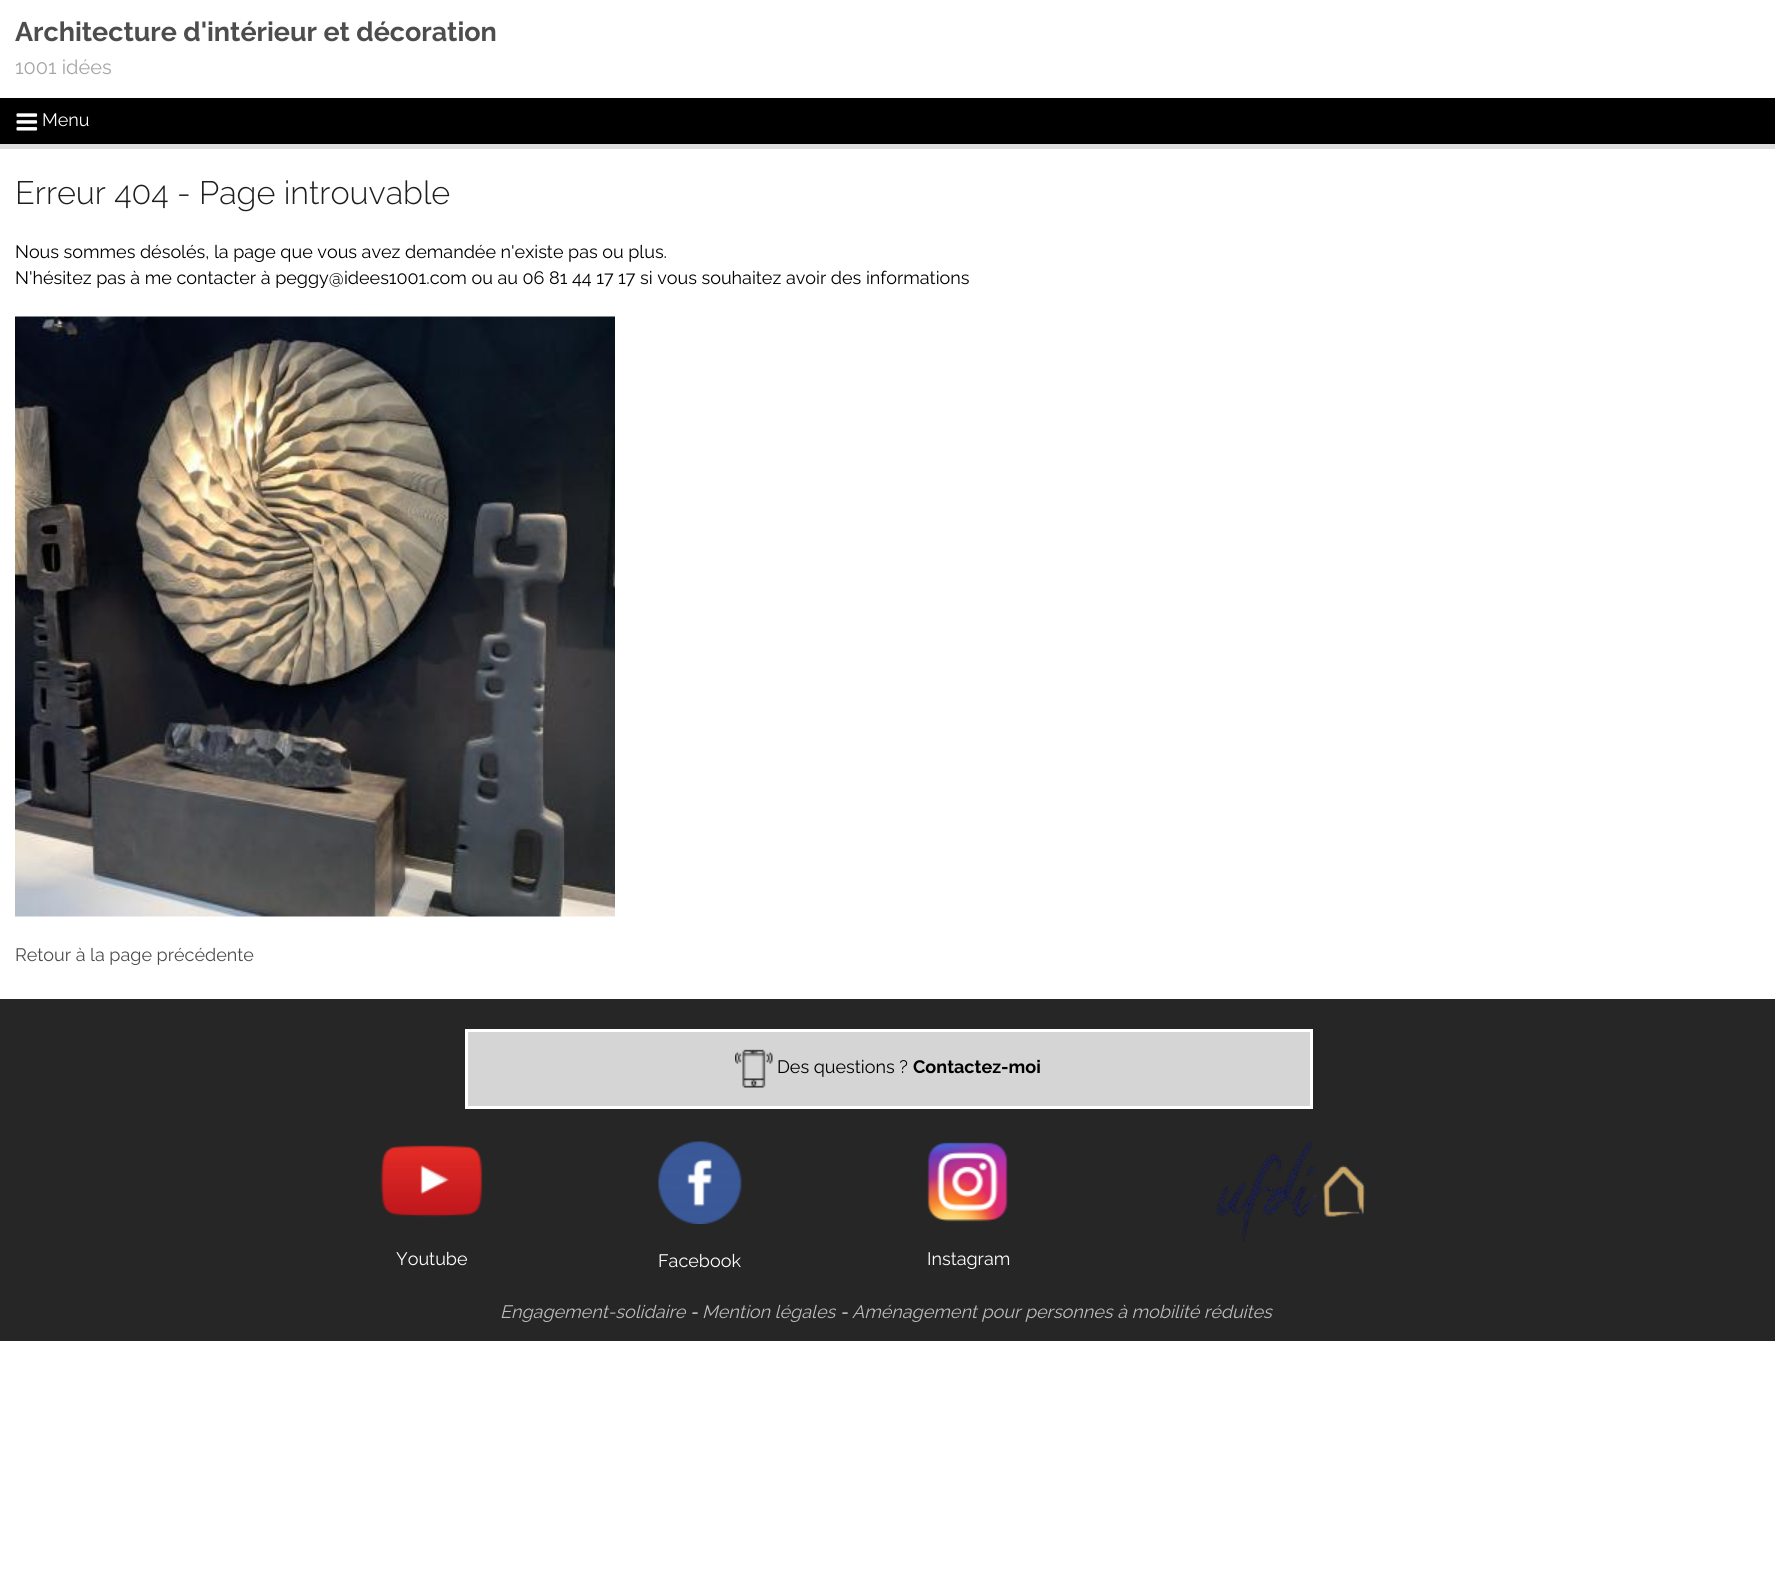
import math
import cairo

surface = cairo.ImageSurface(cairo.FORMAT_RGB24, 1775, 1586)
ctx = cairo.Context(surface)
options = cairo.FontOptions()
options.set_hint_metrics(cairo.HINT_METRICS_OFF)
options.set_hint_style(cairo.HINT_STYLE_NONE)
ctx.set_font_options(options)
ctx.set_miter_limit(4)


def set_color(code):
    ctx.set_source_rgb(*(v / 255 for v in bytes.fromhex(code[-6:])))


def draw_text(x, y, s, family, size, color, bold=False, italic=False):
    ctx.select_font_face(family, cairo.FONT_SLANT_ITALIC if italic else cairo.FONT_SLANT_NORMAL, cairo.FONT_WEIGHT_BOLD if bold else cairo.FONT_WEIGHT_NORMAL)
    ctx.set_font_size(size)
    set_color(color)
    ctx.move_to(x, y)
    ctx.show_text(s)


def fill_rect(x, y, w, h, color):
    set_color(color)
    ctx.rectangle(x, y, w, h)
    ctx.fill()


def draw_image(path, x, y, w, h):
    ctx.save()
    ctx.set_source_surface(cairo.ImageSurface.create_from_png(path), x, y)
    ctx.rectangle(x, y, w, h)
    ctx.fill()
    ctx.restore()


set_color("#ffffff")
ctx.paint()
fill_rect(0, 144, 1775, 5, "#dedede")
draw_text(15, 41, "Architecture d'intérieur et décoration", "Raleway", 26.9, "#4d4d4d", bold=True)
draw_text(15, 74, "1001 idées", "Raleway", 20, "#a5a5a5")
fill_rect(0, 98, 1775, 46, "#000000")
draw_image("assets/img1.png", 16, 113, 22, 18)
draw_text(42, 126, "Menu", "Raleway", 18, "#ffffff")
draw_text(15, 204, "Erreur 404 - Page introuvable", "Raleway Light", 32.4, "#1e1e1e")
draw_text(15, 258, "Nous sommes désolés, la page que vous avez demandée n'existe pas ou plus.", "Raleway", 18, "#000000")
draw_text(15, 284, "N'hésitez pas à me contacter à peggy@idees1001.com ou au 06 81 44 17 17 si vous souhaitez avoir des informations", "Raleway", 18, "#000000")
draw_image("assets/img2.png", 15, 316, 600, 601)
draw_text(15, 961, "Retour à la page précédente", "Raleway", 18, "#4d4d4d")
fill_rect(0, 999, 1775, 342, "#262626")
set_color("#d5d5d5")
ctx.rectangle(466.5, 1030.5, 845, 77)
ctx.fill_preserve()
set_color("#ffffff")
ctx.set_line_width(3)
ctx.stroke()
draw_image("assets/img3.png", 735, 1049, 38, 39)
draw_text(777, 1073, "Des questions ?", "Raleway", 18, "#000000")
draw_text(913, 1073, "Contactez-moi", "Raleway", 18, "#000000", bold=True)
draw_image("assets/img4.png", 1216, 1141, 149, 101)
draw_image("assets/img5.png", 380, 1145, 103, 72)
draw_text(396, 1265, "Youtube", "Raleway", 18, "#ffffff")
draw_image("assets/img6.png", 658, 1141, 84, 83)
draw_text(658, 1267, "Facebook", "Raleway", 18, "#ffffff")
draw_image("assets/img7.png", 927, 1142, 81, 80)
draw_text(927, 1265, "Instagram", "Raleway", 18, "#ffffff")
draw_text(500, 1318, "Engagement-solidaire", "Raleway", 18, "#bcbcbc", italic=True)
draw_text(690, 1318, "-", "Raleway", 18, "#ffffff", italic=True)
draw_text(702, 1318, "Mention légales", "Raleway", 18, "#bcbcbc", italic=True)
draw_text(840, 1318, "-", "Raleway", 18, "#ffffff", italic=True)
draw_text(852, 1318, "Aménagement pour personnes à mobilité réduites", "Raleway", 18, "#bcbcbc", italic=True)
surface.write_to_png("output.png")
